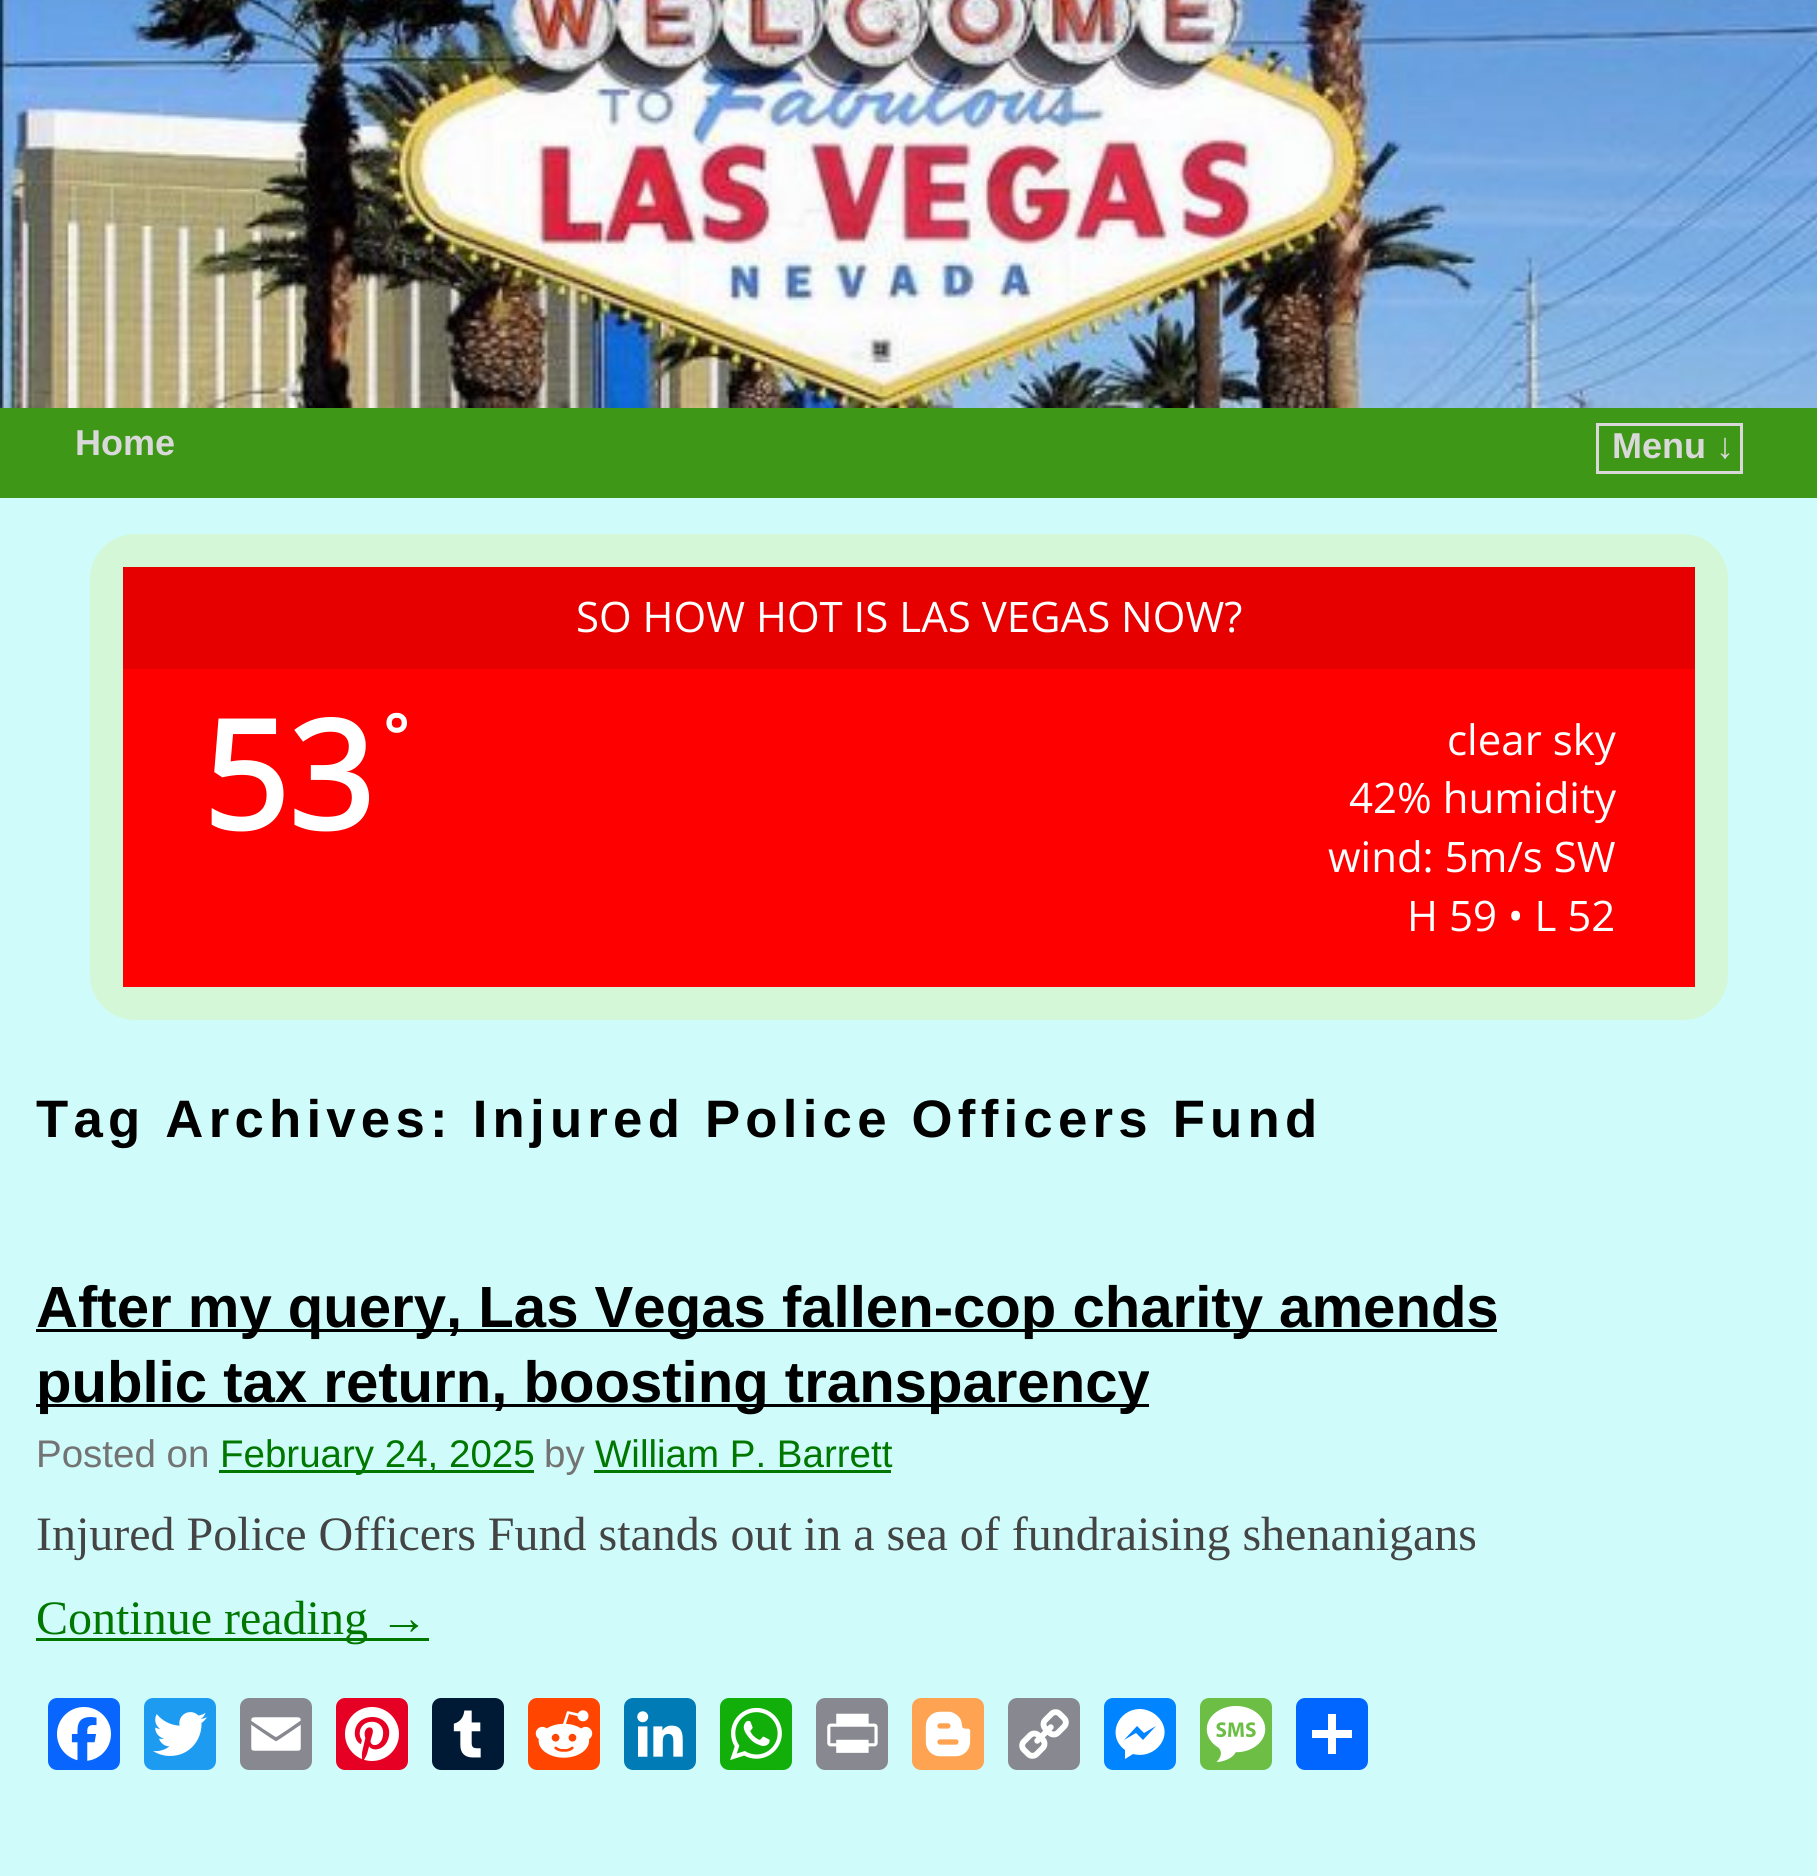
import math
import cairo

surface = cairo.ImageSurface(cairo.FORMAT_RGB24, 1817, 1876)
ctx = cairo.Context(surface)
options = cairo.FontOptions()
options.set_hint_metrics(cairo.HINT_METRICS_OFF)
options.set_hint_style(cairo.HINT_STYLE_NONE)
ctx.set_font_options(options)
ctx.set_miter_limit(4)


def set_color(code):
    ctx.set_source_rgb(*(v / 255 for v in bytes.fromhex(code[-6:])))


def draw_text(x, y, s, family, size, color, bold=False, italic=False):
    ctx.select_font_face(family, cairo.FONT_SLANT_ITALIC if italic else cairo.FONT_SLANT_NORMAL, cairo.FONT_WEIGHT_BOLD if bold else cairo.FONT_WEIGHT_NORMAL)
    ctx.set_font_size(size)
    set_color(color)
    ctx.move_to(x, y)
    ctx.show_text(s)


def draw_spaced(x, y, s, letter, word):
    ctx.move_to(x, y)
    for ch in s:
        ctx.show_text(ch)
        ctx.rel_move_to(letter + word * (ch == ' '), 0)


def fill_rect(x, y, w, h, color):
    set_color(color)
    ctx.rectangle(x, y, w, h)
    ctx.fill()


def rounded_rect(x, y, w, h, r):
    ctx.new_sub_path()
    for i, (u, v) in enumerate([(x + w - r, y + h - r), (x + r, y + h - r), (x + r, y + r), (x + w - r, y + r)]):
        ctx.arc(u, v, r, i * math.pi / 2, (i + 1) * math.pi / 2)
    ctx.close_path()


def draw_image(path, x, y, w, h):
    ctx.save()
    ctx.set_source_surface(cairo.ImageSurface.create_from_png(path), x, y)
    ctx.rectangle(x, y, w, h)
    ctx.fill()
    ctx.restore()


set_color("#3f9718")
ctx.paint()
draw_image("assets/img1.png", 0, 0, 1817, 408)
draw_text(75, 455, "Home", "Liberation Sans", 36, "#d9d9d9", bold=True)
ctx.rectangle(1597.5, 424.5, 144, 48)
ctx.set_line_width(3)
ctx.stroke()
draw_text(1612, 458, "Menu ↓", "Liberation Sans", 36, "#d9d9d9", bold=True)
fill_rect(0, 498, 1817, 1378, "#cffcfa")
set_color("#d4f7d8")
rounded_rect(90, 534, 1638, 486, 45)
ctx.fill()
fill_rect(123, 669, 1572, 318, "#ff0000")
fill_rect(123, 567, 1572, 102, "#e60000")
draw_text(576, 632, "SO HOW HOT IS LAS VEGAS NOW?", "Open Sans", 42, "#ffffff")
draw_text(202, 830, "53", "Open Sans", 150, "#ffffff", bold=True)
draw_text(383, 758, "°", "Open Sans", 60, "#ffffff", bold=True)
draw_text(1447, 755, "clear sky", "Open Sans", 42, "#ffffff")
draw_text(1349, 813, "42% humidity", "Open Sans", 42, "#ffffff")
draw_text(1328, 872, "wind: 5m/s SW", "Open Sans", 42, "#ffffff")
draw_text(1407, 931, "H 59 • L 52", "Open Sans", 42, "#ffffff")
ctx.select_font_face("Liberation Sans", cairo.FONT_SLANT_NORMAL, cairo.FONT_WEIGHT_BOLD)
ctx.set_font_size(52.7)
set_color("#000000")
draw_spaced(36, 1137, "Tag Archives: Injured Police Officers Fund", 5.25, 0)
fill_rect(36, 1329, 1461, 3, "#000000")
draw_text(36, 1327, "After my query, Las Vegas fallen-cop charity amends", "Liberation Sans", 58.1, "#000000", bold=True)
fill_rect(36, 1404, 1113, 3, "#000000")
draw_text(36, 1402, "public tax return, boosting transparency", "Liberation Sans", 58.1, "#000000", bold=True)
draw_text(36, 1467, "Posted on", "Liberation Sans", 38.5, "#737373")
fill_rect(219, 1470, 315, 3, "#007700")
draw_text(220, 1467, "February 24, 2025", "Liberation Sans", 38.5, "#007700")
draw_text(544, 1467, "by", "Liberation Sans", 38.5, "#737373")
draw_text(595, 1467, "William P. Barrett", "Liberation Sans", 38.5, "#007700")
fill_rect(594, 1470, 297, 3, "#007700")
draw_text(36, 1550, "Injured Police Officers Fund stands out in a sea of fundraising shenanigans", "Liberation Serif", 48, "#444444")
fill_rect(36, 1638, 393, 3, "#007700")
draw_text(36, 1634, "Continue reading →", "Liberation Serif", 48, "#007700")
set_color("#0866ff")
rounded_rect(48, 1698, 72, 72, 9)
ctx.fill()
draw_image("assets/img2.png", 57, 1707, 54, 54)
set_color("#1d9bf0")
rounded_rect(144, 1698, 72, 72, 9)
ctx.fill()
draw_image("assets/img3.png", 153, 1712, 54, 44)
set_color("#888990")
rounded_rect(240, 1698, 72, 72, 9)
ctx.fill()
draw_image("assets/img4.png", 251, 1717, 50, 34)
set_color("#e60023")
rounded_rect(336, 1698, 72, 72, 9)
ctx.fill()
draw_image("assets/img5.png", 345, 1707, 54, 54)
set_color("#001935")
rounded_rect(432, 1698, 72, 72, 9)
ctx.fill()
draw_image("assets/img6.png", 453, 1710, 28, 48)
set_color("#ff4500")
rounded_rect(528, 1698, 72, 72, 9)
ctx.fill()
draw_image("assets/img7.png", 535, 1710, 58, 48)
set_color("#007bb5")
rounded_rect(624, 1698, 72, 72, 9)
ctx.fill()
draw_image("assets/img8.png", 637, 1711, 46, 46)
set_color("#12af0a")
rounded_rect(720, 1698, 72, 72, 9)
ctx.fill()
draw_image("assets/img9.png", 730, 1707, 52, 53)
set_color("#888990")
rounded_rect(816, 1698, 72, 72, 9)
ctx.fill()
draw_image("assets/img10.png", 827, 1713, 51, 40)
set_color("#fda352")
rounded_rect(912, 1698, 72, 72, 9)
ctx.fill()
draw_image("assets/img11.png", 925, 1711, 46, 46)
set_color("#888990")
rounded_rect(1008, 1698, 72, 72, 9)
ctx.fill()
draw_image("assets/img12.png", 1019, 1709, 50, 50)
set_color("#0084ff")
rounded_rect(1104, 1698, 72, 72, 9)
ctx.fill()
set_color("#ffffff")
ctx.new_path()
ctx.move_to(1140, 1709)
ctx.curve_to(1118, 1709, 1106, 1736, 1125, 1750)
ctx.line_to(1125, 1759)
ctx.line_to(1133, 1754)
ctx.curve_to(1156, 1760, 1176, 1734, 1157, 1716)
ctx.curve_to(1153, 1712, 1146, 1709, 1140, 1709)
ctx.move_to(1143, 1740)
ctx.line_to(1136, 1733)
ctx.line_to(1124, 1740)
ctx.line_to(1137, 1726)
ctx.line_to(1144, 1733)
ctx.line_to(1156, 1726)
ctx.close_path()
ctx.fill()
set_color("#6cbe45")
rounded_rect(1200, 1698, 72, 72, 9)
ctx.fill()
draw_image("assets/img13.png", 1206, 1706, 60, 56)
set_color("#0166ff")
rounded_rect(1296, 1698, 72, 72, 9)
ctx.fill()
fill_rect(1328, 1714, 8, 40, "#ffffff")
fill_rect(1312, 1730, 40, 8, "#ffffff")
surface.write_to_png("output.png")
